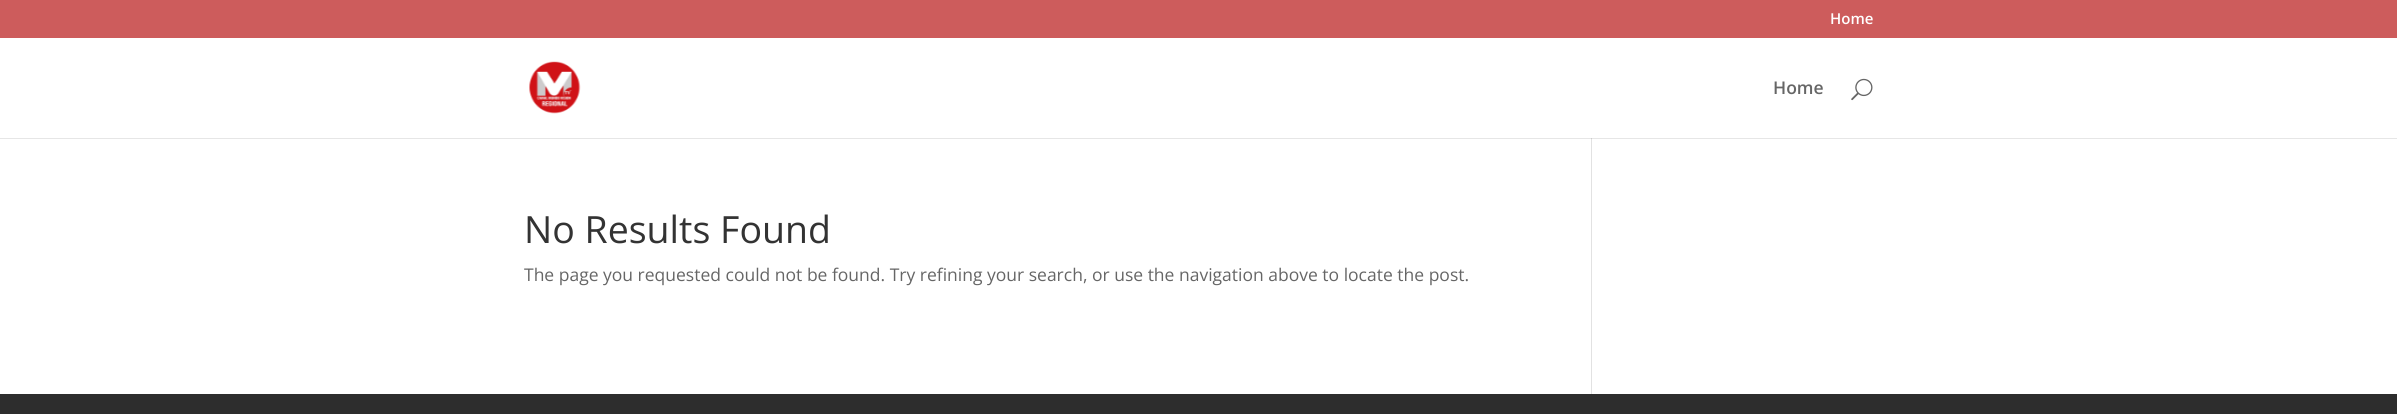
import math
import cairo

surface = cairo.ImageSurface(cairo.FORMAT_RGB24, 2397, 414)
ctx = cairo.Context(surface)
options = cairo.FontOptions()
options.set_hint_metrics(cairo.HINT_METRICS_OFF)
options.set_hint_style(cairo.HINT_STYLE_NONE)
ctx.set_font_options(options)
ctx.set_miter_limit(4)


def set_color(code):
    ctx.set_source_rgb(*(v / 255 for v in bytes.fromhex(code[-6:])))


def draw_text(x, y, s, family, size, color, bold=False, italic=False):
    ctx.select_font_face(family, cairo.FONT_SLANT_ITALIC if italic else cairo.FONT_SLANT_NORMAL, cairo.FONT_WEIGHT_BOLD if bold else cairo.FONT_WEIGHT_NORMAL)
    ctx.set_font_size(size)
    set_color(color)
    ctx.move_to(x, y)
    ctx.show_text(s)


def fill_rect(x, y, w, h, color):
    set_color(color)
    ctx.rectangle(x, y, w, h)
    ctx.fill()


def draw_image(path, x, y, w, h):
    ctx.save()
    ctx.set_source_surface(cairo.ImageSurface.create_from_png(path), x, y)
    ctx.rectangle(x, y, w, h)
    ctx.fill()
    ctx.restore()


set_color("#ffffff")
ctx.paint()
fill_rect(0, 0, 2397, 38, "#cd5c5c")
draw_text(1830, 24, "Home", "Open Sans SemiBold", 15, "#ffffff")
fill_rect(1591, 138, 1, 256, "#e2e2e2")
ctx.set_source_rgba(0, 0, 0, 0.1)
ctx.new_path()
ctx.move_to(0, 138)
ctx.line_to(0, 139)
ctx.line_to(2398, 139)
ctx.line_to(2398, 39)
ctx.line_to(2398, 138)
ctx.close_path()
ctx.fill()
draw_image("assets/img1.png", 529, 61, 52, 53)
draw_text(1773, 94, "Home", "Open Sans SemiBold", 17.5, "#666666")
draw_image("assets/img2.png", 1851, 78, 22, 23)
draw_text(524, 243, "No Results Found", "Open Sans", 37.5, "#333333")
draw_text(524, 281, "The page you requested could not be found. Try refining your search, or use the navigation above to locate the post.", "Open Sans", 17.5, "#666666")
fill_rect(0, 394, 2397, 20, "#2d2d2d")
surface.write_to_png("output.png")
